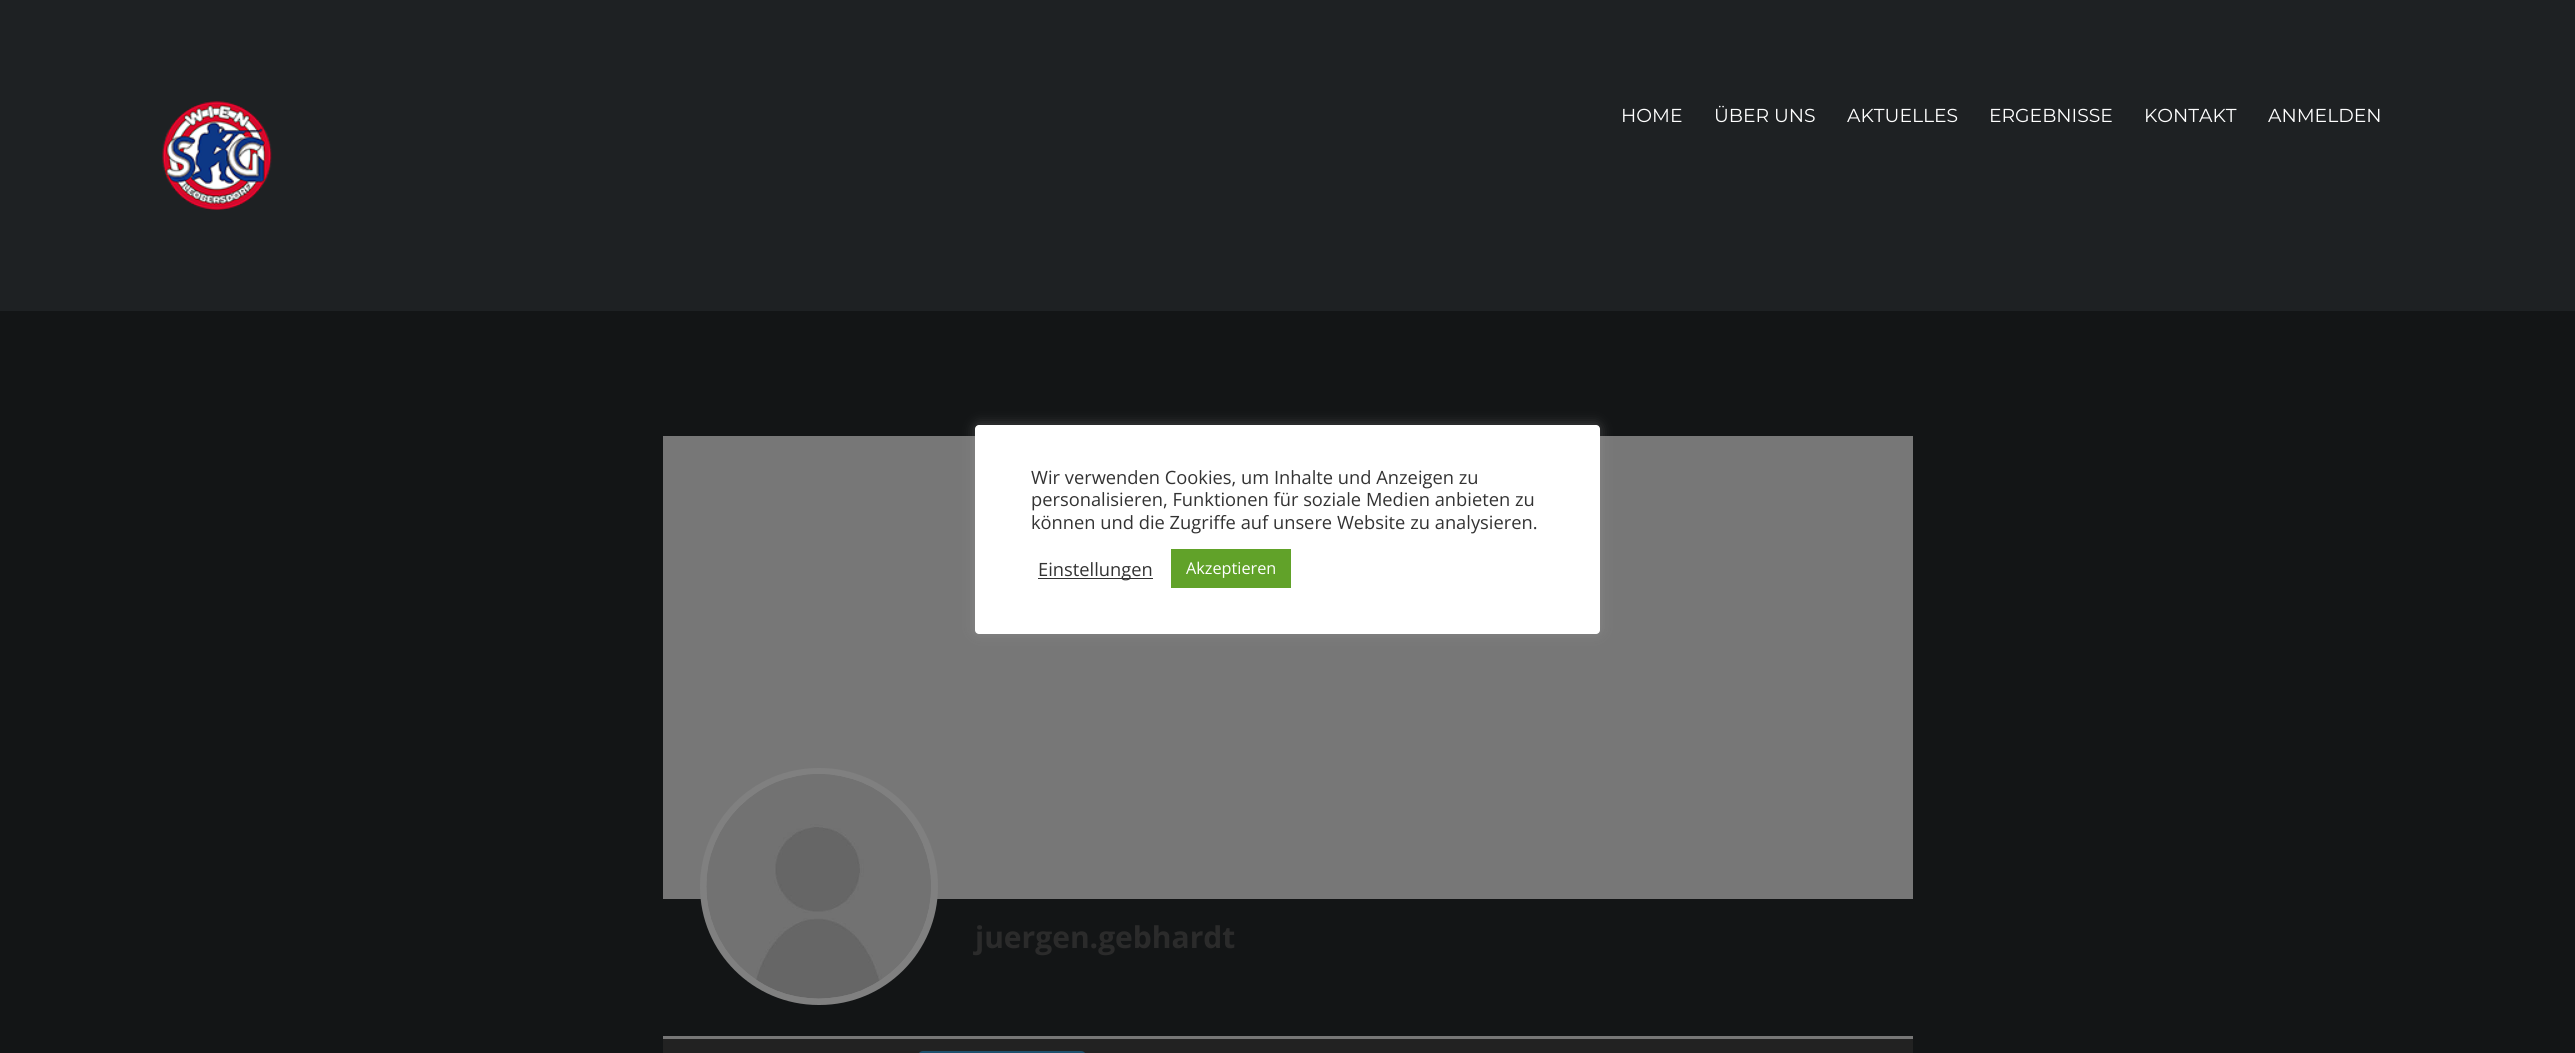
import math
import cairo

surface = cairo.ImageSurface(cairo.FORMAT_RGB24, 2575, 1053)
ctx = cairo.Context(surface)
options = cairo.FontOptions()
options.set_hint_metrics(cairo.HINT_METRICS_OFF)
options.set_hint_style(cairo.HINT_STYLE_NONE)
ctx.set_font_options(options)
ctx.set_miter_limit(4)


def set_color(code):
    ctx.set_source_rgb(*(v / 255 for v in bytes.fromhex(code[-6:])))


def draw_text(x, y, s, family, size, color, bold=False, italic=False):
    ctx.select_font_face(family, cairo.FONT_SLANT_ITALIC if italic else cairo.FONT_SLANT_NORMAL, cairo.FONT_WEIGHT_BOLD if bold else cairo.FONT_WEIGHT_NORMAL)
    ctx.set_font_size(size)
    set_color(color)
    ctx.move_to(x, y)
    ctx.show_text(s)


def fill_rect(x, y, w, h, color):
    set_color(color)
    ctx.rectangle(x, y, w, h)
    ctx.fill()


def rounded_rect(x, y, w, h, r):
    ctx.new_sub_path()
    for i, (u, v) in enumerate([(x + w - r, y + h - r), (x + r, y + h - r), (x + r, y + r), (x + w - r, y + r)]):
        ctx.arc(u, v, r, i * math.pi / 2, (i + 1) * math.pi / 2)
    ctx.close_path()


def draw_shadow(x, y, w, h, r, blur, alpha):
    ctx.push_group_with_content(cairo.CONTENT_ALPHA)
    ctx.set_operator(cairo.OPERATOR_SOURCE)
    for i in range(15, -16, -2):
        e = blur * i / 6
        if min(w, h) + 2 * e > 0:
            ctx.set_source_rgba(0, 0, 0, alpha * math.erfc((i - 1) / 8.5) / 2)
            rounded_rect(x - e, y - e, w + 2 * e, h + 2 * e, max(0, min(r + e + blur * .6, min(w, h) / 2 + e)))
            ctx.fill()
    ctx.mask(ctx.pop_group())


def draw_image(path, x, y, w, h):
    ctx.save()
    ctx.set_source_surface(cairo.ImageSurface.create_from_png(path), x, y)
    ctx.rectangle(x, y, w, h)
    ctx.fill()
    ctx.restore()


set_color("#131516")
ctx.paint()
fill_rect(0, 0, 2575, 311, "#1e2123")
draw_image("assets/img1.png", 162, 101, 110, 109)
draw_text(1621, 122, "HOME", "Montserrat", 18.75, "#ffffff")
draw_text(1714, 122, "ÜBER UNS", "Montserrat", 18.75, "#ffffff")
draw_text(1847, 122, "AKTUELLES", "Montserrat", 18.75, "#ffffff")
draw_text(1989, 122, "ERGEBNISSE", "Montserrat", 18.75, "#ffffff")
draw_text(2144, 122, "KONTAKT", "Montserrat", 18.75, "#ffffff")
draw_text(2268, 122, "ANMELDEN", "Montserrat", 18.75, "#ffffff")
fill_rect(663, 436, 1250, 463, "#777777")
fill_rect(663, 1036, 1250, 3, "#777777")
set_color("#808080")
rounded_rect(703, 771, 232, 231, 115.5)
ctx.fill_preserve()
ctx.set_line_width(6)
ctx.stroke()
draw_image("assets/img2.png", 706, 774, 225, 225)
draw_text(975, 948, "juergen.gebhardt", "Open Sans", 30, "#2b2b2b", bold=True)
fill_rect(663, 1039, 1250, 14, "#222222")
set_color("#1e516d")
rounded_rect(918, 1051, 168, 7, 5)
ctx.fill()
set_color("#acabab")
draw_shadow(975, 424, 625, 209, 4, 6, 0.3)
set_color("#ffffff")
rounded_rect(975, 425, 625, 209, 4)
ctx.fill()
draw_text(1031, 484, "Wir verwenden Cookies, um Inhalte und Anzeigen zu", "Open Sans", 18.3, "#333333")
draw_text(1031, 506, "personalisieren, Funktionen für soziale Medien anbieten zu", "Open Sans", 18.3, "#333333")
draw_text(1031, 529, "können und die Zugriffe auf unsere Website zu analysieren.", "Open Sans", 18.3, "#333333")
fill_rect(1038, 578, 115, 1, "#333333")
draw_text(1038, 576, "Einstellungen", "Open Sans", 18.3, "#333333")
fill_rect(1171, 549, 120, 39, "#61a229")
draw_text(1186, 574, "Akzeptieren", "Open Sans", 16.25, "#ffffff")
surface.write_to_png("output.png")
